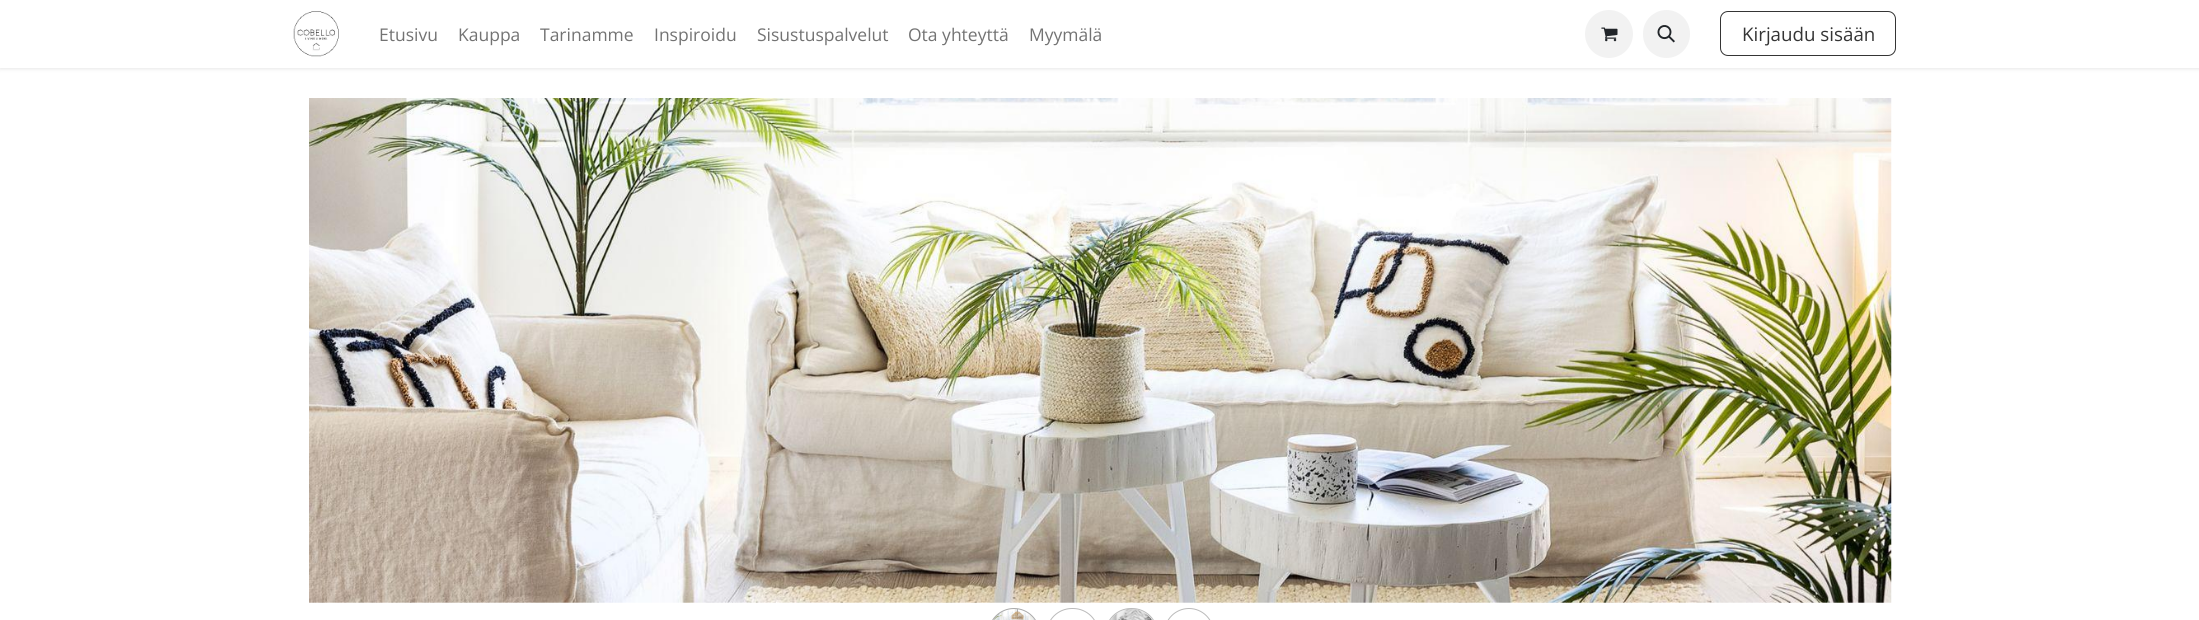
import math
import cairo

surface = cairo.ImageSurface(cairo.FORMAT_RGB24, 2199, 620)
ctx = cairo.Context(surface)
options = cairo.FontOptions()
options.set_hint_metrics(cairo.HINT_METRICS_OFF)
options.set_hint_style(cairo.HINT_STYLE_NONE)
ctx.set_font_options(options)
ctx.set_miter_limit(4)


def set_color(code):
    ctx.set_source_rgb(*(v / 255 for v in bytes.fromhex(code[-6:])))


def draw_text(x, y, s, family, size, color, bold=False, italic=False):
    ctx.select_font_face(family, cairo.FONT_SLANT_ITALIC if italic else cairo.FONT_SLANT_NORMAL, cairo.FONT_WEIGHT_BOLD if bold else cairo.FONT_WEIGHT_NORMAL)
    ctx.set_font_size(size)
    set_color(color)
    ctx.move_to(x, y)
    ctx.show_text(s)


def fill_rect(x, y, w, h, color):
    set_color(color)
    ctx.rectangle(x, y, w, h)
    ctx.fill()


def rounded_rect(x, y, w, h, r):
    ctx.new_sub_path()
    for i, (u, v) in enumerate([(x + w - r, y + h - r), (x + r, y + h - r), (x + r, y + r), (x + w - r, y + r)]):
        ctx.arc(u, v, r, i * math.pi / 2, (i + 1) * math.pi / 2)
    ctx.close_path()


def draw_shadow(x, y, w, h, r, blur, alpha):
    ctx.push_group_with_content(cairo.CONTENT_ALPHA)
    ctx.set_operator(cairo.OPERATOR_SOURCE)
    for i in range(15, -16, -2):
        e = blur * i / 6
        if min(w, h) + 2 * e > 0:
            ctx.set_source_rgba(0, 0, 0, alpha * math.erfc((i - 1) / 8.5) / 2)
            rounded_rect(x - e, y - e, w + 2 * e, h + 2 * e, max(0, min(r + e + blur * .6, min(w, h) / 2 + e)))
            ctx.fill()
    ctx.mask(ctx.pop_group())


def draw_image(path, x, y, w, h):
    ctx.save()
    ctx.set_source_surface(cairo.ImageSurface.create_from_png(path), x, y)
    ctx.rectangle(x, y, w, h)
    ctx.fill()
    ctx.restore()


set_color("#ffffff")
ctx.paint()
set_color("#000000")
draw_shadow(0, 1, 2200, 68, 0, 2, 0.1)
fill_rect(0, 0, 2199, 68, "#ffffff")
draw_image("assets/img1.png", 293, 11, 46, 46)
draw_text(379, 41, "Etusivu", "Open Sans", 17.5, "#737373")
draw_text(458, 41, "Kauppa", "Open Sans", 17.5, "#737373")
draw_text(540, 41, "Tarinamme", "Open Sans", 17.5, "#737373")
draw_text(654, 41, "Inspiroidu", "Open Sans", 17.5, "#737373")
draw_text(757, 41, "Sisustuspalvelut", "Open Sans", 17.5, "#737373")
draw_text(908, 41, "Ota yhteyttä", "Open Sans", 17.5, "#737373")
draw_text(1029, 41, "Myymälä", "Open Sans", 17.5, "#737373")
set_color("#f2f2f2")
ctx.new_path()
ctx.arc(1609, 34, 24, 0, 2 * math.pi)
ctx.fill()
draw_image("assets/img2.png", 1601, 27, 17, 15)
rounded_rect(1643, 10, 47, 48, 23.5)
ctx.fill()
draw_image("assets/img3.png", 1657, 25, 18, 18)
rounded_rect(1720.5, 11.5, 175, 44, 7.5)
set_color("#353535")
ctx.set_line_width(1)
ctx.stroke()
draw_text(1742, 41, "Kirjaudu sisään", "Open Sans", 18.75, "#353535")
draw_image("assets/img4.png", 309, 98, 1583, 505)
ctx.set_source_rgba(1, 1, 1, 0.5)
ctx.new_path()
ctx.move_to(417.5, 350)
ctx.line_to(435, 332.5)
ctx.line_to(437.5, 335)
ctx.line_to(422.5, 350)
ctx.line_to(437.5, 365)
ctx.line_to(435, 367.5)
ctx.close_path()
ctx.fill()
ctx.new_path()
ctx.move_to(1782.5, 350)
ctx.line_to(1765, 367.5)
ctx.line_to(1762.5, 365)
ctx.line_to(1777.5, 350)
ctx.line_to(1762.5, 335)
ctx.line_to(1765, 332.5)
ctx.close_path()
ctx.fill()
draw_image("assets/img5.png", 993, 609, 42, 11)
rounded_rect(988.5, 608.5, 51, 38, 25.5)
set_color("#aaaaaa")
ctx.stroke()
rounded_rect(1046.5, 608.5, 52, 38, 25.5)
set_color("#bbbbbb")
ctx.stroke()
draw_image("assets/img6.png", 1110, 609, 42, 11)
rounded_rect(1105.5, 608.5, 52, 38, 25.5)
ctx.stroke()
rounded_rect(1164.5, 608.5, 49, 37, 24.5)
ctx.stroke()
surface.write_to_png("output.png")
